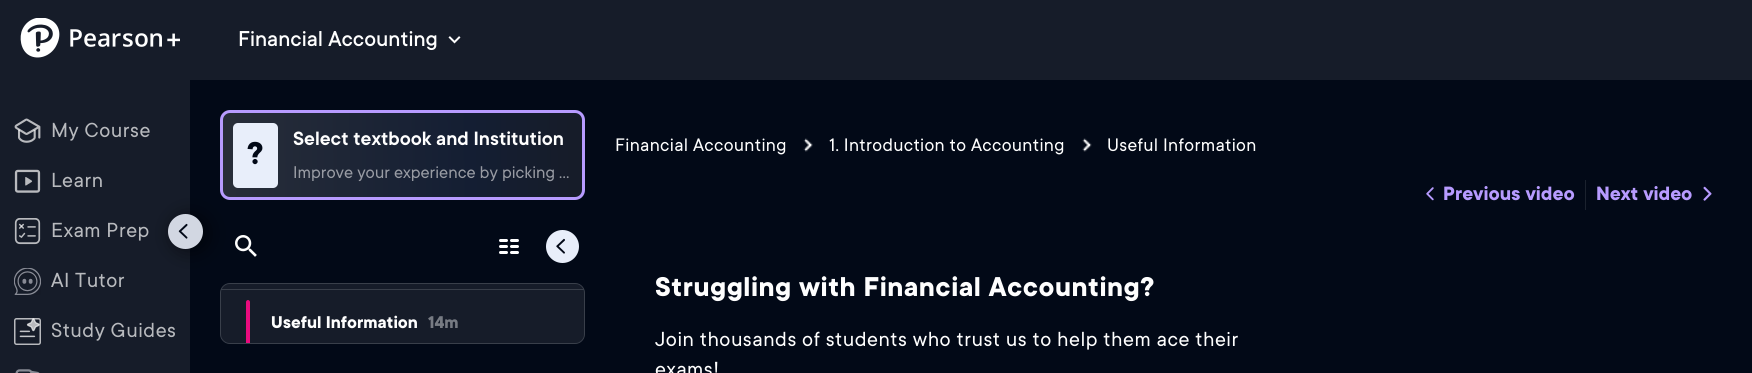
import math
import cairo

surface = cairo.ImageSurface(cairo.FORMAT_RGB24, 1752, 373)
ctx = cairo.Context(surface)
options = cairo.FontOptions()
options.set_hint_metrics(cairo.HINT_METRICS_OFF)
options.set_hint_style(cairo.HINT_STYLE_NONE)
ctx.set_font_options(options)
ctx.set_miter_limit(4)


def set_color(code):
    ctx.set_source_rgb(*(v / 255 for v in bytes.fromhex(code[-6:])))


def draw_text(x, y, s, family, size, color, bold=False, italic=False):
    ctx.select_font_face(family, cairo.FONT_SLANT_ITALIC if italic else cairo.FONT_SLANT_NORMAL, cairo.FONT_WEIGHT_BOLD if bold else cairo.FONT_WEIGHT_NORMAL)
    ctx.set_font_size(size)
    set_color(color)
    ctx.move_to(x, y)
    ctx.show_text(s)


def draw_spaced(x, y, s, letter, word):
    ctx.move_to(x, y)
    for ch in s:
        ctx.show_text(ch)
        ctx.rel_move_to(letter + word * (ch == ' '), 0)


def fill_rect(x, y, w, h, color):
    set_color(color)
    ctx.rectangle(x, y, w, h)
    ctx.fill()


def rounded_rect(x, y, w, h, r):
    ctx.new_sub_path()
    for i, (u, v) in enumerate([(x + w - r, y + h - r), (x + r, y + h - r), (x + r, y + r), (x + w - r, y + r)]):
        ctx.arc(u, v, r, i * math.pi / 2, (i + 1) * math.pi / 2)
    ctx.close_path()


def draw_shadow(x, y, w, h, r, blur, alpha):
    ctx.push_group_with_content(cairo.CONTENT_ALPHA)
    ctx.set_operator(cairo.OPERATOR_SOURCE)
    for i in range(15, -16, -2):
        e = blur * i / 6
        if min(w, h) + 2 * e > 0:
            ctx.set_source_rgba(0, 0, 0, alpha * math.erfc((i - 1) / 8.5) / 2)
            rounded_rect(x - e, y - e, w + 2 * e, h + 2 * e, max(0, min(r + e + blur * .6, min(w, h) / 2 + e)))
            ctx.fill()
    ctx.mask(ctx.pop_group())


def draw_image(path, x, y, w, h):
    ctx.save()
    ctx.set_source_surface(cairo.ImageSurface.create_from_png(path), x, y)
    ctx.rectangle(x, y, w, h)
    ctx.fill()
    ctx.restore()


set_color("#020917")
ctx.paint()
fill_rect(0, 0, 1752, 80, "#161c29")
draw_image("assets/img1.png", 20, 18, 40, 40)
draw_image("assets/img2.png", 70, 29, 110, 18)
draw_text(238, 46, "Financial Accounting", "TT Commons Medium", 23.75, "#fefefe")
draw_image("assets/img3.png", 448, 36, 13, 8)
fill_rect(0, 80, 190, 293, "#161c29")
draw_image("assets/img4.png", 14, 118, 27, 25)
ctx.select_font_face("TT Commons")
ctx.set_font_size(22.5)
set_color("#b8babe")
draw_spaced(51, 137, "My Course", 0.5, 0)
draw_image("assets/img5.png", 14, 169, 27, 24)
draw_spaced(51, 187, "Learn", 0.5, 0)
draw_image("assets/img6.png", 14, 218, 27, 27)
draw_spaced(51, 237, "Exam Prep", 0.5, 0)
draw_image("assets/img7.png", 14, 268, 27, 27)
draw_spaced(51, 287, "AI Tutor", 0.5, 0)
draw_image("assets/img8.png", 14, 318, 27, 27)
draw_spaced(51, 337, "Study Guides", 0.5, 0)
draw_image("assets/img9.png", 15, 369, 25, 4)
ctx.save()
rounded_rect(220, 110, 365, 90, 10)
ctx.clip()
gradient = cairo.LinearGradient(222, 158, 583, 152)
gradient.add_color_stop_rgba(0.02, 0.153, 0.176, 0.224, 1)
gradient.add_color_stop_rgba(0.69, 0.078, 0.118, 0.2, 1)
gradient.add_color_stop_rgba(0.97, 0.086, 0.11, 0.161, 1)
ctx.set_source(gradient)
ctx.rectangle(223, 113, 360, 85)
ctx.fill()
ctx.restore()
rounded_rect(221.5, 111.5, 362, 87, 8.5)
set_color("#b79bff")
ctx.set_line_width(3)
ctx.stroke()
set_color("#e8eefa")
rounded_rect(233, 123, 45, 65, 5)
ctx.fill()
draw_image("assets/img11.png", 235, 235, 22, 22)
set_color("#000000")
draw_shadow(173, 216, 35, 35, 17.5, 10, 0.56)
set_color("#d2d7e2")
ctx.arc(185.5, 231.5, 17.5, 0, 2 * math.pi)
ctx.fill()
draw_image("assets/img10.png", 178, 223, 10, 16)
draw_text(247, 164, "?", "TT Commons", 35, "#020917", bold=True)
draw_text(293, 145, "Select textbook and Institution", "TT Commons SemiBold", 21.25, "#fefefe")
draw_text(293, 178, "Improve your experience by picking …", "TT Commons", 18.75, "#989ba3")
draw_image("assets/img12.png", 499, 239, 20, 15)
set_color("#e8eefa")
ctx.arc(562.5, 246.5, 16.5, 0, 2 * math.pi)
ctx.fill()
draw_image("assets/img13.png", 556, 238, 9, 16)
set_color("#272d39")
rounded_rect(220.5, 283.5, 364, 60, 9.5)
ctx.fill_preserve()
set_color("#393f4a")
ctx.set_line_width(1)
ctx.stroke()
ctx.save()
rounded_rect(221, 284, 363, 59, 9)
ctx.clip()
fill_rect(221, 284, 363, 5, "#161c29")
ctx.restore()
fill_rect(221, 289, 363, 1, "#393f4a")
ctx.save()
rounded_rect(221, 284, 363, 59, 9)
ctx.clip()
set_color("#161c29")
ctx.new_path()
ctx.move_to(221, 290)
ctx.line_to(584, 290)
ctx.line_to(584, 334)
ctx.curve_to(584, 339, 580, 343, 575, 343)
ctx.line_to(230, 343)
ctx.curve_to(225, 343, 221, 339, 221, 334)
ctx.close_path()
ctx.fill()
ctx.restore()
set_color("#ea0b7e")
ctx.new_path()
ctx.move_to(248, 300)
ctx.curve_to(249, 300, 250, 301, 250, 302)
ctx.line_to(250, 343)
ctx.line_to(246, 343)
ctx.line_to(246, 302)
ctx.curve_to(246, 301, 247, 300, 248, 300)
ctx.close_path()
ctx.fill()
draw_text(271, 328, "Useful Information", "TT Commons", 18.75, "#fefefe", bold=True)
draw_text(428, 328, "14m", "TT Commons", 18.75, "#777b83", bold=True)
ctx.select_font_face("TT Commons")
ctx.set_font_size(20)
set_color("#fefefe")
draw_spaced(615, 151, "Financial Accounting", 0.3, 0)
draw_image("assets/img14.png", 803, 138, 10, 14)
draw_spaced(829, 151, "1. Introduction to Accounting", 0.3, 0)
draw_image("assets/img15.png", 1082, 138, 10, 14)
draw_spaced(1107, 151, "Useful Information", 0.3, 0)
draw_image("assets/img16.png", 1426, 187, 8, 14)
draw_text(1443, 200, "Previous video", "TT Commons", 21.25, "#b79bff", bold=True)
fill_rect(1585, 180, 1, 30, "#1b222e")
draw_text(1596, 200, "Next video", "TT Commons", 21.25, "#b79bff", bold=True)
draw_image("assets/img17.png", 1703, 186, 9, 15)
ctx.set_font_size(30)
set_color("#fefefe")
draw_spaced(655, 296, "Struggling with Financial Accounting?", 0.5, 0)
ctx.select_font_face("TT Commons")
ctx.set_font_size(22.5)
draw_spaced(655, 346, "Join thousands of students who trust us to help them ace their", 0.5, 0)
draw_spaced(655, 376, "exams!", 0.5, 0)
surface.write_to_png("output.png")
